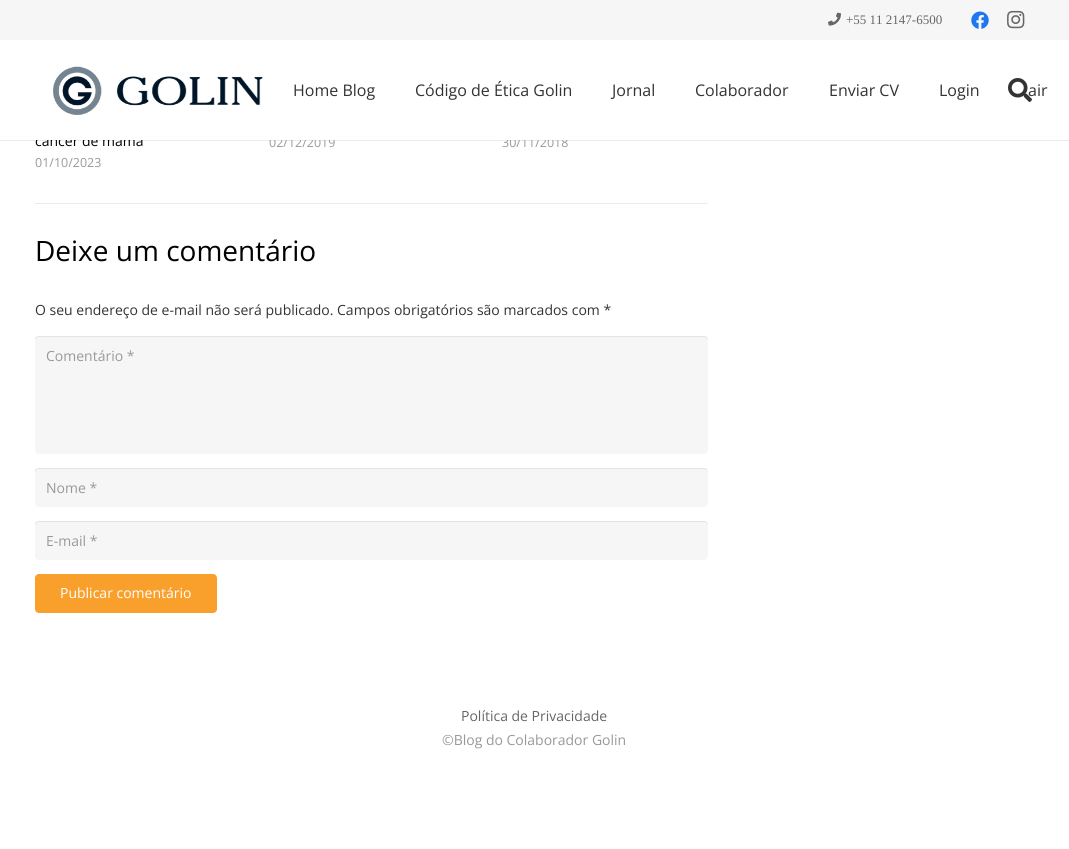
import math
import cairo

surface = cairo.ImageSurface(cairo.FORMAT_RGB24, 1069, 849)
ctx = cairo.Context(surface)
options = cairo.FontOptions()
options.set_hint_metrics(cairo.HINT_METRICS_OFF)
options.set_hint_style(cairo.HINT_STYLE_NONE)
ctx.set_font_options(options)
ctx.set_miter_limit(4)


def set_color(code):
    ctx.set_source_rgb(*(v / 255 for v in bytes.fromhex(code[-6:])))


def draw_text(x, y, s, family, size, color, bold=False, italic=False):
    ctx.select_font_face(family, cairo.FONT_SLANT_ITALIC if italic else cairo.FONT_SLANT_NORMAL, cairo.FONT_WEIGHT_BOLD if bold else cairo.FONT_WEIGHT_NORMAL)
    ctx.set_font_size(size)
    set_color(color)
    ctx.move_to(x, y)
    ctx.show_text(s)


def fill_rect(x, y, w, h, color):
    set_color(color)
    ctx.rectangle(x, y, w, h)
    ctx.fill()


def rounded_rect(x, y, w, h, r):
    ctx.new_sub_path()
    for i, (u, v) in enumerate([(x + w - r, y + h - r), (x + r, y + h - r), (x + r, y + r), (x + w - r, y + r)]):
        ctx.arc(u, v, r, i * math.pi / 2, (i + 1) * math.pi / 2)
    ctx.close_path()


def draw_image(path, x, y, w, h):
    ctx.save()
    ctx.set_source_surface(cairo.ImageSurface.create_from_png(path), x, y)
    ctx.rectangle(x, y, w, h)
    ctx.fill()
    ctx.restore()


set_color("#ffffff")
ctx.paint()
fill_rect(0, 0, 1069, 40, "#f6f6f6")
draw_image("assets/img1.png", 828, 12, 13, 14)
draw_text(846, 24, "+55 11 2147-6500", "Liberation Serif", 13, "#666666")
draw_image("assets/img2.png", 971, 11, 18, 18)
draw_image("assets/img3.png", 1007, 10, 18, 19)
ctx.set_source_rgba(0, 0, 0, 0.08)
ctx.rectangle(0, 140, 1069, 1)
ctx.fill()
draw_text(35, 146, "câncer de mama", "Open Sans", 14, "#000000")
draw_text(269, 147, "02/12/2019", "Open Sans", 12.5, "#999999")
draw_text(502, 147, "30/11/2018", "Open Sans", 12.5, "#999999")
fill_rect(36, 135, 532, 5, "#ffffff")
draw_image("assets/img4.png", 53, 66, 210, 49)
draw_text(1028, 96, "air", "Open Sans", 16, "#333333")
draw_image("assets/img5.png", 1008, 78, 24, 24)
draw_text(293, 96, "Home Blog", "Open Sans", 16, "#333333")
draw_text(415, 96, "Código de Ética Golin", "Open Sans", 16, "#333333")
draw_text(612, 96, "Jornal", "Open Sans", 16, "#333333")
draw_text(695, 96, "Colaborador", "Open Sans", 16, "#333333")
draw_text(829, 96, "Enviar CV", "Open Sans", 16, "#333333")
draw_text(939, 96, "Login", "Open Sans", 16, "#333333")
draw_text(35, 167, "01/10/2023", "Open Sans", 12.5, "#999999")
fill_rect(35, 203, 673, 1, "#ebebeb")
draw_text(35, 261, "Deixe um comentário", "Open Sans", 28, "#000000")
draw_text(35, 315, "O seu endereço de e-mail não será publicado. Campos obrigatórios são marcados com *", "Open Sans", 14, "#333333")
set_color("#f6f6f6")
rounded_rect(35, 336, 673, 118, 4)
ctx.fill()
ctx.set_source_rgba(0, 0, 0, 0.08)
ctx.new_path()
ctx.move_to(39, 337)
ctx.line_to(704, 337)
ctx.curve_to(706, 337, 708, 339, 708, 341)
ctx.curve_to(708, 338, 707, 336, 704, 336)
ctx.line_to(39, 336)
ctx.line_to(36, 337)
ctx.line_to(35, 338)
ctx.line_to(35, 341)
ctx.curve_to(35, 339, 37, 337, 39, 337)
ctx.close_path()
ctx.fill()
draw_text(46, 361, "Comentário *", "Open Sans", 14, "#999999")
set_color("#f6f6f6")
rounded_rect(35, 468, 673, 39, 4)
ctx.fill()
ctx.set_source_rgba(0, 0, 0, 0.08)
ctx.new_path()
ctx.move_to(39, 469)
ctx.line_to(704, 469)
ctx.curve_to(706, 469, 708, 471, 708, 473)
ctx.curve_to(708, 470, 707, 468, 704, 468)
ctx.line_to(39, 468)
ctx.line_to(36, 469)
ctx.line_to(35, 470)
ctx.line_to(35, 473)
ctx.curve_to(35, 471, 37, 469, 39, 469)
ctx.close_path()
ctx.fill()
draw_text(46, 493, "Nome *", "Open Sans", 14, "#999999")
set_color("#f6f6f6")
rounded_rect(35, 521, 673, 39, 4)
ctx.fill()
ctx.set_source_rgba(0, 0, 0, 0.08)
ctx.new_path()
ctx.move_to(39, 522)
ctx.line_to(704, 522)
ctx.curve_to(706, 522, 708, 524, 708, 526)
ctx.curve_to(708, 523, 707, 521, 704, 521)
ctx.line_to(39, 521)
ctx.line_to(36, 522)
ctx.line_to(35, 523)
ctx.line_to(35, 526)
ctx.curve_to(35, 524, 37, 522, 39, 522)
ctx.close_path()
ctx.fill()
draw_text(46, 546, "E-mail *", "Open Sans", 14, "#999999")
set_color("#f9a02c")
rounded_rect(35, 574, 182, 39, 4)
ctx.fill()
draw_text(60, 598, "Publicar comentário", "Open Sans", 14, "#ffffff")
draw_text(461, 721, "Política de Privacidade", "Open Sans", 14, "#666666")
draw_text(442, 745, "©Blog do Colaborador Golin", "Open Sans", 14, "#999999")
surface.write_to_png("output.png")
